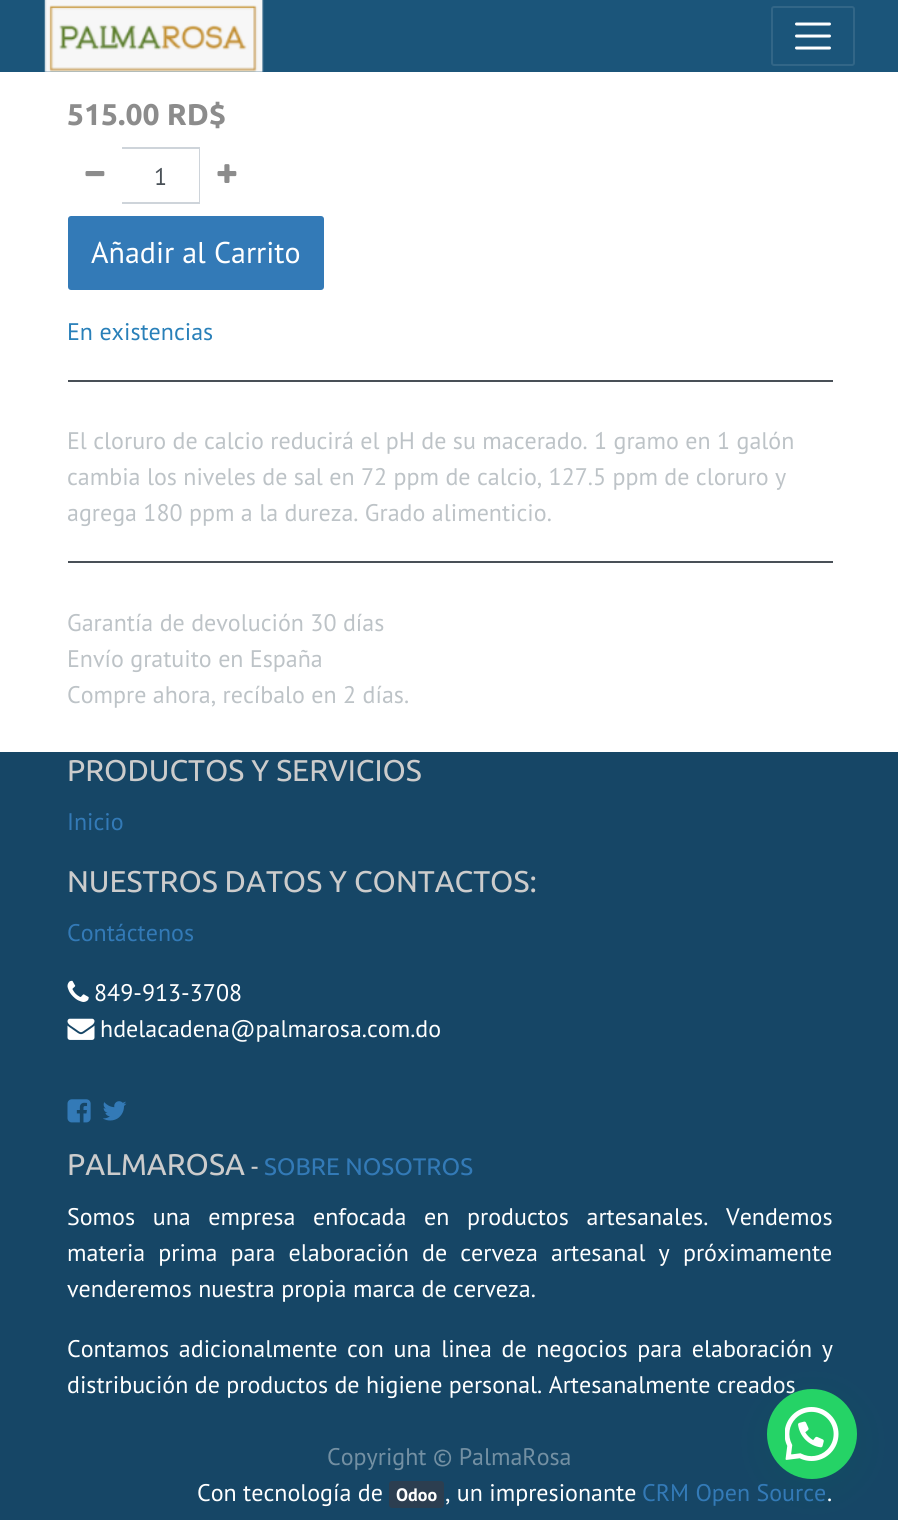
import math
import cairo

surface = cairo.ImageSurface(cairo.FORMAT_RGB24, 898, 1520)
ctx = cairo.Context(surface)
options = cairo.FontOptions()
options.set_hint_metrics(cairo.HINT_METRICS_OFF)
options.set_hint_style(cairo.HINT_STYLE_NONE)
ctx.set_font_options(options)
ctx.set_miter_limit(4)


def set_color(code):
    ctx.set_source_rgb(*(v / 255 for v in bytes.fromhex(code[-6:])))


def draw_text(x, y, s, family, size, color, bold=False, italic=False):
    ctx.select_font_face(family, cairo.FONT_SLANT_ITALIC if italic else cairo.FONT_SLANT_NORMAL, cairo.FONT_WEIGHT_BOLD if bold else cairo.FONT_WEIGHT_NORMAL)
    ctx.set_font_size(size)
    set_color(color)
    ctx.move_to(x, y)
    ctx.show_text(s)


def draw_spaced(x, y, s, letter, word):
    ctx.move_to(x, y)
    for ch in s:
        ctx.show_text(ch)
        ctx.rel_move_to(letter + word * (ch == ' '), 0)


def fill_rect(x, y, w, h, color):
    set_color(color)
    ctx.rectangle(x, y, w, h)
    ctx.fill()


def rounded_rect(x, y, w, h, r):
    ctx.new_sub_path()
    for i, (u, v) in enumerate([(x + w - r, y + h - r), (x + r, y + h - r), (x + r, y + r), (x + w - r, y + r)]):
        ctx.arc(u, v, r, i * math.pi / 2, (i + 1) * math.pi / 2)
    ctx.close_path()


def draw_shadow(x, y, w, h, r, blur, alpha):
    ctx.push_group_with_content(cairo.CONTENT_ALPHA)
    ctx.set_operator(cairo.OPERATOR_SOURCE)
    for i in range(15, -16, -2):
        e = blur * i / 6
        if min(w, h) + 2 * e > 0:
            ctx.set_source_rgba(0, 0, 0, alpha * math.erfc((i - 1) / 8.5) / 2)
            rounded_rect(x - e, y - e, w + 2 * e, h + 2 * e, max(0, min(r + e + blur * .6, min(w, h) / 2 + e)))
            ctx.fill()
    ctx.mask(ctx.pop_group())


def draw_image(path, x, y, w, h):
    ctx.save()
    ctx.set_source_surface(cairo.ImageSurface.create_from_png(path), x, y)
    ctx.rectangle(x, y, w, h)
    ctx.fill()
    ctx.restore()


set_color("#ffffff")
ctx.paint()
fill_rect(0, 0, 898, 72, "#1b557a")
draw_image("assets/img1.png", 44, 0, 220, 72)
rounded_rect(772, 7, 82, 58, 2)
set_color("#326687")
ctx.stroke()
ctx.new_path()
ctx.move_to(796.5, 24)
ctx.line_to(829.5, 24)
ctx.move_to(796.5, 36)
ctx.line_to(829.5, 36)
ctx.move_to(796.5, 48)
ctx.line_to(829.5, 48)
set_color("#ffffff")
ctx.set_line_width(3)
ctx.set_line_cap(cairo.LINE_CAP_ROUND)
ctx.stroke()
draw_text(67, 125, "515.00 RD$", "Ubuntu", 30, "#8c8c8c", bold=True)
ctx.rectangle(121, 148, 79, 55)
set_color("#ced4da")
ctx.set_line_width(2)
ctx.set_line_cap(cairo.LINE_CAP_BUTT)
ctx.stroke()
set_color("#ffffff")
ctx.new_path()
ctx.move_to(71, 147)
ctx.line_to(122, 147)
ctx.line_to(122, 204)
ctx.line_to(71, 204)
ctx.curve_to(69.5, 204, 68, 202.5, 68, 201)
ctx.line_to(68, 150)
ctx.curve_to(68, 148.5, 69.5, 147, 71, 147)
ctx.close_path()
ctx.fill()
draw_image("assets/img2.png", 85, 171, 20, 6)
draw_text(154, 185, "1", "PT Sans", 24, "#495057")
set_color("#ffffff")
ctx.new_path()
ctx.move_to(200, 147)
ctx.line_to(252, 147)
ctx.curve_to(253.5, 147, 255, 148.5, 255, 150)
ctx.line_to(255, 201)
ctx.curve_to(255, 202.5, 253.5, 204, 252, 204)
ctx.line_to(200, 204)
ctx.close_path()
ctx.fill()
draw_image("assets/img3.png", 217, 164, 20, 19)
set_color("#337ab7")
rounded_rect(68, 216, 256, 74, 3)
ctx.fill()
draw_text(91, 263, "Añadir al Carrito", "PT Sans", 30, "#ffffff")
draw_text(67, 340, "En existencias", "PT Sans", 24, "#2980b9")
fill_rect(68, 380, 765, 2, "#495057")
draw_text(67, 449, "El cloruro de calcio reducirá el pH de su macerado. 1 gramo en 1 galón", "PT Sans", 24, "#bdc3c7")
draw_text(67, 485, "cambia los niveles de sal en 72 ppm de calcio, 127.5 ppm de cloruro y", "PT Sans", 24, "#bdc3c7")
draw_text(67, 521, "agrega 180 ppm a la dureza. Grado alimenticio.", "PT Sans", 24, "#bdc3c7")
fill_rect(68, 561, 765, 2, "#495057")
draw_text(67, 631, "Garantía de devolución 30 días", "PT Sans", 24, "#bdc3c7")
draw_text(67, 667, "Envío gratuito en España", "PT Sans", 24, "#bdc3c7")
draw_text(67, 703, "Compre ahora, recíbalo en 2 días.", "PT Sans", 24, "#bdc3c7")
fill_rect(0, 752, 898, 768, "#164666")
draw_text(67, 781, "PRODUCTOS Y SERVICIOS", "Ubuntu", 30, "#cccccc")
draw_text(67, 830, "Inicio", "PT Sans", 24, "#337ab7")
draw_text(67, 892, "NUESTROS DATOS Y CONTACTOS:", "Ubuntu", 30, "#cccccc")
draw_text(67, 941, "Contáctenos", "PT Sans", 24, "#337ab7")
draw_image("assets/img4.png", 67, 980, 22, 22)
draw_text(94, 1001, "849-913-3708", "PT Sans", 24, "#ffffff")
draw_image("assets/img5.png", 67, 1018, 28, 22)
draw_text(100, 1037, "hdelacadena@palmarosa.com.do", "PT Sans", 24, "#ffffff")
draw_image("assets/img6.png", 67, 1099, 24, 24)
draw_image("assets/img7.png", 103, 1101, 24, 20)
draw_text(67, 1175, "PALMAROSA", "Ubuntu", 30, "#cccccc")
draw_text(251, 1175, "-", "Ubuntu", 24, "#cccccc")
draw_text(264, 1175, "SOBRE NOSOTROS", "Ubuntu", 24, "#337ab7")
ctx.select_font_face("PT Sans")
set_color("#ffffff")
draw_spaced(67, 1225, "Somos una empresa enfocada en productos artesanales. Vendemos", 0, 11.25)
draw_spaced(67, 1261, "materia prima para elaboración de cerveza artesanal y próximamente", 0, 6.75)
draw_text(67, 1297, "venderemos nuestra propia marca de cerveza.", "PT Sans", 24, "#ffffff")
draw_spaced(67, 1357, "Contamos adicionalmente con una linea de negocios para elaboración y", 0, 3.25)
draw_text(67, 1393, "distribución de productos de higiene personal. Artesanalmente creados", "PT Sans", 24, "#ffffff")
set_color("#075e54")
draw_shadow(768, 1398, 90, 90, 45, 18, 0.24)
set_color("#25d366")
ctx.arc(812, 1434, 45, 0, 2 * math.pi)
ctx.fill()
draw_image("assets/img8.png", 785, 1407, 54, 54)
draw_text(327, 1465, "Copyright © PalmaRosa", "PT Sans", 24, "#7390a3")
draw_text(197, 1501, "Con tecnología de", "PT Sans", 24, "#ffffff")
set_color("#2c3e50")
rounded_rect(389, 1481, 55, 27, 3)
ctx.fill()
draw_text(396, 1501, "Odoo", "PT Sans", 18, "#ffffff", bold=True)
draw_text(445, 1501, ", un impresionante", "PT Sans", 24, "#ffffff")
draw_text(642, 1501, "CRM Open Source", "PT Sans", 24, "#337ab7")
draw_text(827, 1501, ".", "PT Sans", 24, "#ffffff")
surface.write_to_png("output.png")
